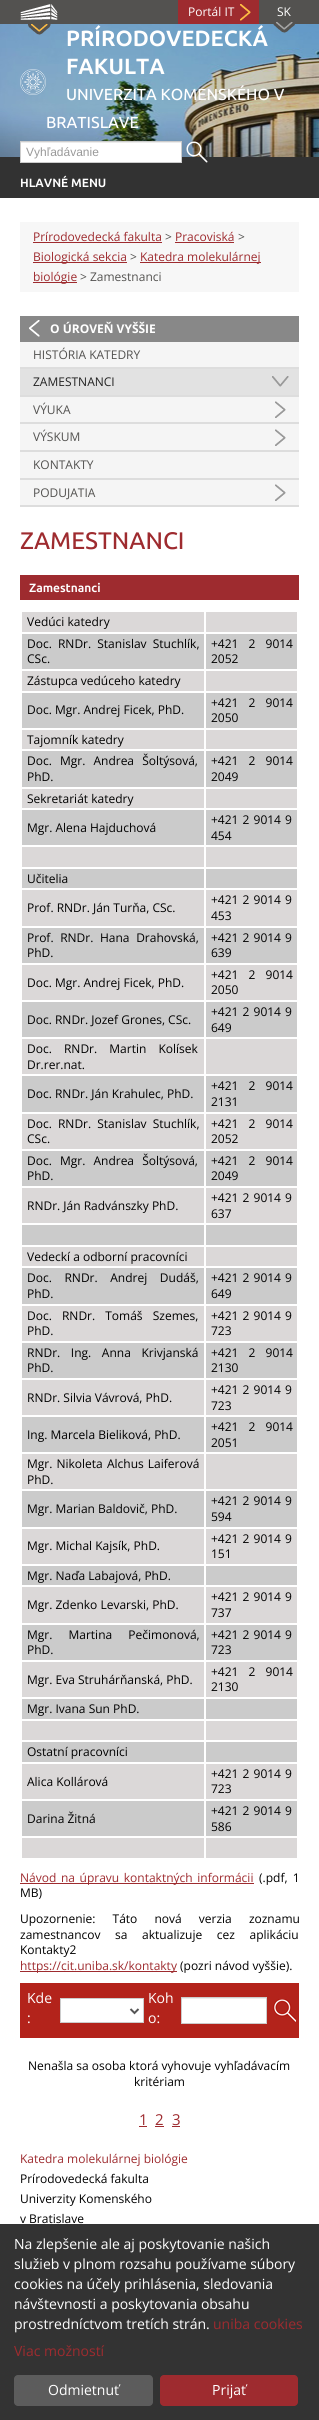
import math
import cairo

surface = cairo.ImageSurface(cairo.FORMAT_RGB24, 319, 2420)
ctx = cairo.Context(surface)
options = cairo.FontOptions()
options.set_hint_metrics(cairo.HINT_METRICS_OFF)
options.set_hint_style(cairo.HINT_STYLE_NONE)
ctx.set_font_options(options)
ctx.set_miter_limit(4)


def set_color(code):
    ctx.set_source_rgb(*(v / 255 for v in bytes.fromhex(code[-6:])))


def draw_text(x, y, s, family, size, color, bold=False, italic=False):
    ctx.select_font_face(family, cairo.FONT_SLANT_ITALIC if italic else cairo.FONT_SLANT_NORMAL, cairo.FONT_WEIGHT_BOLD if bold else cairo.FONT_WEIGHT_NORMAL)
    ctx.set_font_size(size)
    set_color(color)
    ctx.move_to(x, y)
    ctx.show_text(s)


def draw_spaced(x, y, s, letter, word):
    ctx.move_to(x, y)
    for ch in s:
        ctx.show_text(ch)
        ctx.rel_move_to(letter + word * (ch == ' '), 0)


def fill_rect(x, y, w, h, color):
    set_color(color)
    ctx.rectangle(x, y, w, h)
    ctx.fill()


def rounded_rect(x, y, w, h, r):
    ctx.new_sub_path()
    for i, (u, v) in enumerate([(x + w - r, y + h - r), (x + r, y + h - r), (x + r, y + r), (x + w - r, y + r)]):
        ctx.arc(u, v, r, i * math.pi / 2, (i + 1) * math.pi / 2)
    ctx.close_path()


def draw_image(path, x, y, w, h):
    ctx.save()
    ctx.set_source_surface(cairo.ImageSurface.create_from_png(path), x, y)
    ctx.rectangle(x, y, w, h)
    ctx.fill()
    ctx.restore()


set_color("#ffffff")
ctx.paint()
fill_rect(0, 0, 319, 24, "#535250")
draw_image("assets/img4.png", 0, 24, 319, 133)
draw_image("assets/img1.png", 20, 4, 38, 31)
fill_rect(178, 0, 81, 24, "#9e2b2f")
draw_image("assets/img2.png", 240, 4, 11, 17)
draw_text(188, 16, "Portál IT", "Open Sans", 12, "#ffffff")
draw_image("assets/img3.png", 273, 22, 22, 11)
draw_text(277, 16, "SK", "Open Sans", 12, "#ffffff")
fill_rect(0, 157, 319, 41, "#323232")
draw_image("assets/img5.png", 20, 69, 26, 26)
draw_text(66, 46, "PRÍRODOVEDECKÁ", "Ubuntu", 22, "#ffffff", bold=True)
draw_text(66, 74, "FAKULTA", "Ubuntu", 22, "#ffffff", bold=True)
draw_text(66, 100, "UNIVERZITA KOMENSKÉHO V", "Ubuntu Medium", 16, "#ffffff")
draw_text(46, 128, "BRATISLAVE", "Ubuntu Medium", 16, "#ffffff")
fill_rect(21, 143, 160, 19, "#ffffff")
fill_rect(21, 142, 160, 1, "#ececec")
ctx.rectangle(20.5, 141.5, 161, 21)
set_color("#cccccc")
ctx.set_line_width(1)
ctx.stroke()
draw_text(26, 156, "Vyhľadávanie", "Liberation Sans", 12, "#999999")
draw_image("assets/img6.png", 186, 141, 22, 22)
draw_text(20, 187, "HLAVNÉ MENU", "Ubuntu", 12, "#ffffff", bold=True)
fill_rect(20, 222, 279, 70, "#f7f7f7")
draw_text(33, 241, "Prírodovedecká fakulta", "Open Sans", 12, "#9e2b2f")
fill_rect(33, 242, 129, 1, "#9e2b2f")
draw_text(165, 241, ">", "Open Sans", 12, "#535250")
draw_text(175, 241, "Pracoviská", "Open Sans", 12, "#9e2b2f")
fill_rect(175, 242, 59, 1, "#9e2b2f")
draw_text(238, 241, ">", "Open Sans", 12, "#535250")
fill_rect(33, 262, 94, 1, "#9e2b2f")
draw_text(33, 261, "Biologická sekcia", "Open Sans", 12, "#9e2b2f")
draw_text(130, 261, ">", "Open Sans", 12, "#535250")
fill_rect(140, 262, 121, 1, "#9e2b2f")
draw_text(140, 261, "Katedra molekulárnej", "Open Sans", 12, "#9e2b2f")
fill_rect(33, 282, 44, 1, "#9e2b2f")
draw_text(33, 281, "biológie", "Open Sans", 12, "#9e2b2f")
draw_text(80, 281, "> Zamestnanci", "Open Sans", 12, "#535250")
fill_rect(20, 342, 279, 163, "#f5f5f5")
fill_rect(20, 316, 279, 26, "#888888")
draw_image("assets/img7.png", 29, 320, 11, 17)
draw_text(50, 333, "O ÚROVEŇ VYŠŠIE", "Open Sans", 12, "#ffffff", bold=True)
fill_rect(20, 367, 279, 2, "#dddddd")
draw_text(33, 359, "HISTÓRIA KATEDRY", "Open Sans", 12, "#535250")
fill_rect(20, 395, 279, 2, "#dddddd")
fill_rect(20, 369, 279, 26, "#e2e2e2")
draw_image("assets/img8.png", 272, 376, 17, 11)
draw_text(33, 386, "ZAMESTNANCI", "Open Sans", 12, "#222222")
fill_rect(20, 422, 279, 2, "#dddddd")
draw_image("assets/img9.png", 275, 401, 11, 17)
draw_text(33, 414, "VÝUKA", "Open Sans", 12, "#535250")
fill_rect(20, 450, 279, 2, "#dddddd")
draw_image("assets/img9.png", 275, 429, 11, 17)
draw_text(33, 441, "VÝSKUM", "Open Sans", 12, "#535250")
fill_rect(20, 478, 279, 2, "#dddddd")
draw_text(33, 469, "KONTAKTY", "Open Sans", 12, "#535250")
fill_rect(20, 505, 279, 2, "#dddddd")
draw_image("assets/img9.png", 275, 484, 11, 17)
draw_text(33, 497, "PODUJATIA", "Open Sans", 12, "#535250")
draw_text(20, 549, "ZAMESTNANCI", "Ubuntu Medium", 24, "#9e2b2f")
fill_rect(20, 575, 279, 25, "#9e2b2f")
draw_text(29, 592, "Zamestnanci", "Ubuntu", 12, "#ffffff", bold=True)
fill_rect(22, 612, 182, 20, "#dbd8d8")
draw_text(27, 626, "Vedúci katedry", "Open Sans", 12, "#000000")
fill_rect(206, 612, 91, 20, "#dbd8d8")
fill_rect(22, 634, 182, 35, "#cbcbcb")
set_color("#000000")
draw_spaced(27, 648, "Doc. RNDr. Stanislav Stuchlík,", 0, 3)
draw_text(27, 663, "CSc.", "Open Sans", 12, "#000000")
fill_rect(206, 634, 91, 35, "#cbcbcb")
set_color("#000000")
draw_spaced(211, 648, "+421 2 9014", 0, 7)
draw_text(211, 663, "2052", "Open Sans", 12, "#000000")
fill_rect(22, 671, 182, 20, "#dbd8d8")
draw_text(27, 685, "Zástupca vedúceho katedry", "Open Sans", 12, "#000000")
fill_rect(206, 671, 91, 20, "#dbd8d8")
fill_rect(22, 693, 182, 35, "#cbcbcb")
draw_text(27, 714, "Doc. Mgr. Andrej Ficek, PhD.", "Open Sans", 12, "#000000")
fill_rect(206, 693, 91, 35, "#cbcbcb")
set_color("#000000")
draw_spaced(211, 707, "+421 2 9014", 0, 7)
draw_text(211, 722, "2050", "Open Sans", 12, "#000000")
fill_rect(22, 730, 182, 19, "#dbd8d8")
draw_text(27, 744, "Tajomník katedry", "Open Sans", 12, "#000000")
fill_rect(206, 730, 91, 19, "#dbd8d8")
fill_rect(22, 751, 182, 36, "#cbcbcb")
set_color("#000000")
draw_spaced(27, 765, "Doc. Mgr. Andrea Šoltýsová,", 0, 5)
draw_text(27, 781, "PhD.", "Open Sans", 12, "#000000")
fill_rect(206, 751, 91, 36, "#cbcbcb")
set_color("#000000")
draw_spaced(211, 765, "+421 2 9014", 0, 7)
draw_text(211, 781, "2049", "Open Sans", 12, "#000000")
fill_rect(22, 789, 182, 19, "#dbd8d8")
draw_text(27, 803, "Sekretariát katedry", "Open Sans", 12, "#000000")
fill_rect(206, 789, 91, 19, "#dbd8d8")
fill_rect(22, 810, 182, 35, "#cbcbcb")
draw_text(27, 832, "Mgr. Alena Hajduchová", "Open Sans", 12, "#000000")
fill_rect(206, 810, 91, 35, "#cbcbcb")
set_color("#000000")
draw_spaced(211, 824, "+421 2 9014 9", 0, 1)
draw_text(211, 840, "454", "Open Sans", 12, "#000000")
fill_rect(22, 847, 182, 20, "#dbd8d8")
fill_rect(206, 847, 91, 20, "#dbd8d8")
fill_rect(22, 869, 182, 19, "#cbcbcb")
draw_text(27, 883, "Učitelia", "Open Sans", 12, "#000000")
fill_rect(206, 869, 91, 19, "#cbcbcb")
fill_rect(22, 890, 182, 36, "#dbd8d8")
draw_text(27, 912, "Prof. RNDr. Ján Turňa, CSc.", "Open Sans", 12, "#000000")
fill_rect(206, 890, 91, 36, "#dbd8d8")
set_color("#000000")
draw_spaced(211, 904, "+421 2 9014 9", 0, 1)
draw_text(211, 920, "453", "Open Sans", 12, "#000000")
fill_rect(22, 928, 182, 35, "#cbcbcb")
set_color("#000000")
draw_spaced(27, 942, "Prof. RNDr. Hana Drahovská,", 0, 3.5)
draw_text(27, 957, "PhD.", "Open Sans", 12, "#000000")
fill_rect(206, 928, 91, 35, "#cbcbcb")
set_color("#000000")
draw_spaced(211, 942, "+421 2 9014 9", 0, 1)
draw_text(211, 957, "639", "Open Sans", 12, "#000000")
fill_rect(22, 965, 182, 35, "#dbd8d8")
draw_text(27, 987, "Doc. Mgr. Andrej Ficek, PhD.", "Open Sans", 12, "#000000")
fill_rect(206, 965, 91, 35, "#dbd8d8")
set_color("#000000")
draw_spaced(211, 979, "+421 2 9014", 0, 7)
draw_text(211, 994, "2050", "Open Sans", 12, "#000000")
fill_rect(22, 1002, 182, 35, "#cbcbcb")
draw_text(27, 1024, "Doc. RNDr. Jozef Grones, CSc.", "Open Sans", 12, "#000000")
fill_rect(206, 1002, 91, 35, "#cbcbcb")
set_color("#000000")
draw_spaced(211, 1016, "+421 2 9014 9", 0, 1)
draw_text(211, 1032, "649", "Open Sans", 12, "#000000")
fill_rect(22, 1039, 182, 35, "#dbd8d8")
set_color("#000000")
draw_spaced(27, 1053, "Doc. RNDr. Martin Kolísek", 0, 9)
draw_text(27, 1069, "Dr.rer.nat.", "Open Sans", 12, "#000000")
fill_rect(206, 1039, 91, 35, "#dbd8d8")
fill_rect(22, 1076, 182, 36, "#cbcbcb")
draw_text(27, 1098, "Doc. RNDr. Ján Krahulec, PhD.", "Open Sans", 12, "#000000")
fill_rect(206, 1076, 91, 36, "#cbcbcb")
set_color("#000000")
draw_spaced(211, 1090, "+421 2 9014", 0, 7)
draw_text(211, 1106, "2131", "Open Sans", 12, "#000000")
fill_rect(22, 1114, 182, 35, "#dbd8d8")
set_color("#000000")
draw_spaced(27, 1128, "Doc. RNDr. Stanislav Stuchlík,", 0, 3)
draw_text(27, 1143, "CSc.", "Open Sans", 12, "#000000")
fill_rect(206, 1114, 91, 35, "#dbd8d8")
set_color("#000000")
draw_spaced(211, 1128, "+421 2 9014", 0, 7)
draw_text(211, 1143, "2052", "Open Sans", 12, "#000000")
fill_rect(22, 1151, 182, 35, "#cbcbcb")
set_color("#000000")
draw_spaced(27, 1165, "Doc. Mgr. Andrea Šoltýsová,", 0, 5)
draw_text(27, 1180, "PhD.", "Open Sans", 12, "#000000")
fill_rect(206, 1151, 91, 35, "#cbcbcb")
set_color("#000000")
draw_spaced(211, 1165, "+421 2 9014", 0, 7)
draw_text(211, 1180, "2049", "Open Sans", 12, "#000000")
fill_rect(22, 1188, 182, 35, "#dbd8d8")
draw_text(27, 1210, "RNDr. Ján Radvánszky PhD.", "Open Sans", 12, "#000000")
fill_rect(206, 1188, 91, 35, "#dbd8d8")
set_color("#000000")
draw_spaced(211, 1202, "+421 2 9014 9", 0, 1)
draw_text(211, 1218, "637", "Open Sans", 12, "#000000")
fill_rect(22, 1225, 182, 20, "#cbcbcb")
fill_rect(206, 1225, 91, 20, "#cbcbcb")
fill_rect(22, 1247, 182, 19, "#dbd8d8")
draw_text(27, 1261, "Vedeckí a odborní pracovníci", "Open Sans", 12, "#000000")
fill_rect(206, 1247, 91, 19, "#dbd8d8")
fill_rect(22, 1268, 182, 36, "#cbcbcb")
set_color("#000000")
draw_spaced(27, 1282, "Doc. RNDr. Andrej Dudáš,", 0, 9.5)
draw_text(27, 1298, "PhD.", "Open Sans", 12, "#000000")
fill_rect(206, 1268, 91, 36, "#cbcbcb")
set_color("#000000")
draw_spaced(211, 1282, "+421 2 9014 9", 0, 1)
draw_text(211, 1298, "649", "Open Sans", 12, "#000000")
fill_rect(22, 1306, 182, 35, "#dbd8d8")
set_color("#000000")
draw_spaced(27, 1320, "Doc. RNDr. Tomáš Szemes,", 0, 7)
draw_text(27, 1335, "PhD.", "Open Sans", 12, "#000000")
fill_rect(206, 1306, 91, 35, "#dbd8d8")
set_color("#000000")
draw_spaced(211, 1320, "+421 2 9014 9", 0, 1)
draw_text(211, 1335, "723", "Open Sans", 12, "#000000")
fill_rect(22, 1343, 182, 35, "#cbcbcb")
set_color("#000000")
draw_spaced(27, 1357, "RNDr. Ing. Anna Krivjanská", 0, 7.5)
draw_text(27, 1372, "PhD.", "Open Sans", 12, "#000000")
fill_rect(206, 1343, 91, 35, "#cbcbcb")
set_color("#000000")
draw_spaced(211, 1357, "+421 2 9014", 0, 7)
draw_text(211, 1372, "2130", "Open Sans", 12, "#000000")
fill_rect(22, 1380, 182, 35, "#dbd8d8")
draw_text(27, 1402, "RNDr. Silvia Vávrová, PhD.", "Open Sans", 12, "#000000")
fill_rect(206, 1380, 91, 35, "#dbd8d8")
set_color("#000000")
draw_spaced(211, 1394, "+421 2 9014 9", 0, 1)
draw_text(211, 1410, "723", "Open Sans", 12, "#000000")
fill_rect(22, 1417, 182, 35, "#cbcbcb")
draw_text(27, 1439, "Ing. Marcela Bieliková, PhD.", "Open Sans", 12, "#000000")
fill_rect(206, 1417, 91, 35, "#cbcbcb")
set_color("#000000")
draw_spaced(211, 1431, "+421 2 9014", 0, 7)
draw_text(211, 1447, "2051", "Open Sans", 12, "#000000")
fill_rect(22, 1454, 182, 35, "#dbd8d8")
set_color("#000000")
draw_spaced(27, 1468, "Mgr. Nikoleta Alchus Laiferová", 0, 1)
draw_text(27, 1484, "PhD.", "Open Sans", 12, "#000000")
fill_rect(206, 1454, 91, 35, "#dbd8d8")
fill_rect(22, 1491, 182, 36, "#cbcbcb")
draw_text(27, 1513, "Mgr. Marian Baldovič, PhD.", "Open Sans", 12, "#000000")
fill_rect(206, 1491, 91, 36, "#cbcbcb")
set_color("#000000")
draw_spaced(211, 1505, "+421 2 9014 9", 0, 1)
draw_text(211, 1521, "594", "Open Sans", 12, "#000000")
fill_rect(22, 1529, 182, 35, "#dbd8d8")
draw_text(27, 1550, "Mgr. Michal Kajsík, PhD.", "Open Sans", 12, "#000000")
fill_rect(206, 1529, 91, 35, "#dbd8d8")
set_color("#000000")
draw_spaced(211, 1543, "+421 2 9014 9", 0, 1)
draw_text(211, 1558, "151", "Open Sans", 12, "#000000")
fill_rect(22, 1566, 182, 19, "#cbcbcb")
draw_text(27, 1580, "Mgr. Naďa Labajová, PhD.", "Open Sans", 12, "#000000")
fill_rect(206, 1566, 91, 19, "#cbcbcb")
fill_rect(22, 1587, 182, 36, "#dbd8d8")
draw_text(27, 1609, "Mgr. Zdenko Levarski, PhD.", "Open Sans", 12, "#000000")
fill_rect(206, 1587, 91, 36, "#dbd8d8")
set_color("#000000")
draw_spaced(211, 1601, "+421 2 9014 9", 0, 1)
draw_text(211, 1617, "737", "Open Sans", 12, "#000000")
fill_rect(22, 1625, 182, 35, "#cbcbcb")
set_color("#000000")
draw_spaced(27, 1639, "Mgr. Martina Pečimonová,", 0, 13)
draw_text(27, 1654, "PhD.", "Open Sans", 12, "#000000")
fill_rect(206, 1625, 91, 35, "#cbcbcb")
set_color("#000000")
draw_spaced(211, 1639, "+421 2 9014 9", 0, 1)
draw_text(211, 1654, "723", "Open Sans", 12, "#000000")
fill_rect(22, 1662, 182, 35, "#dbd8d8")
draw_text(27, 1684, "Mgr. Eva Struhárňanská, PhD.", "Open Sans", 12, "#000000")
fill_rect(206, 1662, 91, 35, "#dbd8d8")
set_color("#000000")
draw_spaced(211, 1676, "+421 2 9014", 0, 7)
draw_text(211, 1691, "2130", "Open Sans", 12, "#000000")
fill_rect(22, 1699, 182, 20, "#cbcbcb")
draw_text(27, 1713, "Mgr. Ivana Sun PhD.", "Open Sans", 12, "#000000")
fill_rect(206, 1699, 91, 20, "#cbcbcb")
fill_rect(22, 1721, 182, 19, "#dbd8d8")
fill_rect(206, 1721, 91, 19, "#dbd8d8")
fill_rect(22, 1742, 182, 20, "#cbcbcb")
draw_text(27, 1756, "Ostatní pracovníci", "Open Sans", 12, "#000000")
fill_rect(206, 1742, 91, 20, "#cbcbcb")
fill_rect(22, 1764, 182, 35, "#dbd8d8")
draw_text(27, 1786, "Alica Kollárová", "Open Sans", 12, "#000000")
fill_rect(206, 1764, 91, 35, "#dbd8d8")
set_color("#000000")
draw_spaced(211, 1778, "+421 2 9014 9", 0, 1)
draw_text(211, 1793, "723", "Open Sans", 12, "#000000")
fill_rect(22, 1801, 182, 35, "#cbcbcb")
draw_text(27, 1823, "Darina Žitná", "Open Sans", 12, "#000000")
fill_rect(206, 1801, 91, 35, "#cbcbcb")
set_color("#000000")
draw_spaced(211, 1815, "+421 2 9014 9", 0, 1)
draw_text(211, 1831, "586", "Open Sans", 12, "#000000")
fill_rect(22, 1838, 182, 20, "#dbd8d8")
fill_rect(206, 1838, 91, 20, "#dbd8d8")
fill_rect(20, 1883, 234, 1, "#9e2b2f")
draw_spaced(20, 1882, "Návod na úpravu kontaktných informácii", 0, 1.5)
set_color("#000000")
draw_spaced(259, 1882, "(.pdf, 1", 0, 2)
draw_text(20, 1897, "MB)", "Open Sans", 12, "#000000")
draw_spaced(20, 1923, "Upozornenie: Táto nová verzia zoznamu", 0, 14)
draw_spaced(20, 1939, "zamestnancov sa aktualizuje cez aplikáciu", 0, 11.5)
draw_text(20, 1954, "Kontakty2", "Open Sans", 12, "#000000")
fill_rect(20, 1971, 157, 1, "#9e2b2f")
draw_text(20, 1970, "https://cit.uniba.sk/kontakty", "Open Sans", 12, "#9e2b2f")
draw_text(180, 1970, "(pozri návod vyššie).", "Open Sans", 12, "#000000")
fill_rect(20, 1983, 279, 55, "#b3231b")
draw_text(27, 2003, "Kde", "Open Sans", 14, "#ffffff")
draw_text(27, 2023, ":", "Open Sans", 14, "#ffffff")
ctx.rectangle(60.5, 1998.5, 83, 24)
ctx.fill_preserve()
set_color("#cccccc")
ctx.stroke()
ctx.new_path()
ctx.move_to(130.5, 2009)
ctx.line_to(134.5, 2013)
ctx.line_to(138.5, 2009)
set_color("#555555")
ctx.set_line_width(2)
ctx.stroke()
draw_text(148, 2003, "Koh", "Open Sans", 14, "#ffffff")
draw_text(148, 2023, "o:", "Open Sans", 14, "#ffffff")
fill_rect(182, 1999, 84, 24, "#ffffff")
fill_rect(182, 1998, 84, 1, "#ececec")
ctx.rectangle(181.5, 1997.5, 85, 26)
set_color("#cccccc")
ctx.set_line_width(1)
ctx.stroke()
draw_image("assets/img10.png", 273, 1999, 23, 23)
draw_text(28, 2070, "Nenašla sa osoba ktorá vyhovuje vyhľadávacím", "Open Sans", 12, "#000000")
draw_text(134, 2086, "kritériam", "Open Sans", 12, "#000000")
draw_text(139, 2125, "1", "Open Sans", 15, "#9e2b2f")
fill_rect(139, 2126, 8, 1, "#9e2b2f")
draw_text(155, 2125, "2", "Open Sans", 15, "#9e2b2f")
fill_rect(155, 2126, 9, 1, "#9e2b2f")
draw_text(172, 2125, "3", "Open Sans", 15, "#9e2b2f")
fill_rect(172, 2126, 8, 1, "#9e2b2f")
draw_text(20, 2163, "Katedra molekulárnej biológie", "Open Sans", 12, "#9e2b2f")
draw_text(20, 2183, "Prírodovedecká fakulta", "Open Sans", 12, "#000000")
draw_text(20, 2203, "Univerzity Komenského", "Open Sans", 12, "#000000")
draw_text(20, 2223, "v Bratislave", "Open Sans", 12, "#000000")
fill_rect(0, 2224, 319, 196, "#333333")
draw_text(14, 2249, "Na zlepšenie ale aj poskytovanie našich", "Open Sans", 14, "#ffffff")
draw_text(14, 2269, "služieb v plnom rozsahu používame súbory", "Open Sans", 14, "#ffffff")
draw_text(14, 2289, "cookies na účely prihlásenia, sledovania", "Open Sans", 14, "#ffffff")
draw_text(14, 2309, "návštevnosti a poskytovania obsahu", "Open Sans", 14, "#ffffff")
draw_text(14, 2329, "prostredníctvom tretích strán.", "Open Sans", 14, "#ffffff")
draw_text(213, 2329, "uniba cookies", "Open Sans", 14, "#9e2b2f")
draw_text(14, 2356, "Viac možností", "Open Sans", 14, "#9e2b2f")
set_color("#5c5c5c")
rounded_rect(14, 2375, 139, 31, 4)
ctx.fill()
draw_text(48, 2395, "Odmietnuť", "Open Sans", 14, "#ffffff")
set_color("#9e2b2f")
rounded_rect(160, 2375, 138, 31, 4)
ctx.fill()
draw_text(212, 2395, "Prijať", "Open Sans", 14, "#ffffff")
surface.write_to_png("output.png")
